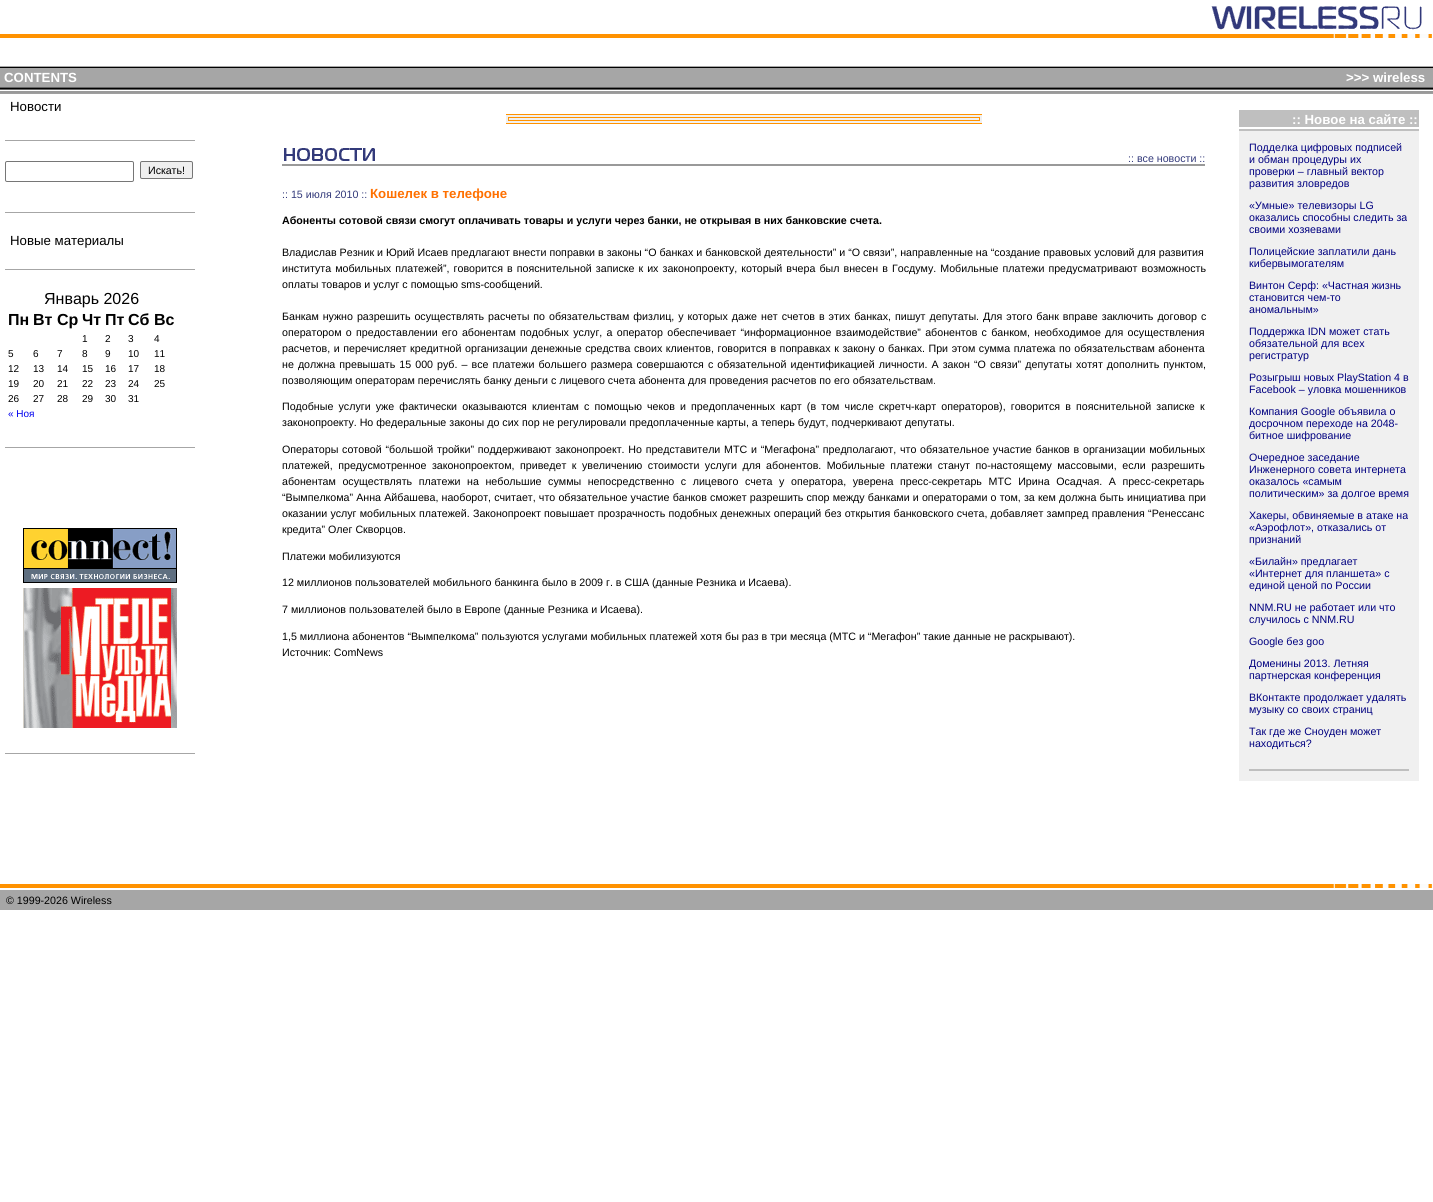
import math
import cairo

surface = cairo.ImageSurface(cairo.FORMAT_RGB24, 1433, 1202)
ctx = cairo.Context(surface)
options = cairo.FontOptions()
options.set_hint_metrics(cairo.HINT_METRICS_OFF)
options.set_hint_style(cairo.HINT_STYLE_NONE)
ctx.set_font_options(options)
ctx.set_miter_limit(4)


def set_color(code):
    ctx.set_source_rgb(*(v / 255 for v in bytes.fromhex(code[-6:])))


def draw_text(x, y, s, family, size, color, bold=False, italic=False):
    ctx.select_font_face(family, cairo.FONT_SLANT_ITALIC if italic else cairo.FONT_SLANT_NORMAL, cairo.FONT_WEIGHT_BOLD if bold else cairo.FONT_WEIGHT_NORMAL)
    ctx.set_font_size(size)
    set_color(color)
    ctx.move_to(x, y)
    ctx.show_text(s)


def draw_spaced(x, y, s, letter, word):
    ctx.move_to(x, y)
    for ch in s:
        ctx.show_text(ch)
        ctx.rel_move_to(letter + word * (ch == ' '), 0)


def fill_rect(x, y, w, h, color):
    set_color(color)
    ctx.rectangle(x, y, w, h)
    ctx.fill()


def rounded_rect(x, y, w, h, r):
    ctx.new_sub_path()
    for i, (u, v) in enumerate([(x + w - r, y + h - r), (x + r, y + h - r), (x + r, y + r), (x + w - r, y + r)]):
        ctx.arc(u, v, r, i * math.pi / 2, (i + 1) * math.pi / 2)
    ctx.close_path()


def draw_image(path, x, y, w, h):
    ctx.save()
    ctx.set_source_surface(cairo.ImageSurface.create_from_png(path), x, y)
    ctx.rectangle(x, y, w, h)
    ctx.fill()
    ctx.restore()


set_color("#ffffff")
ctx.paint()
draw_image("assets/img1.png", 1211, 6, 211, 24)
fill_rect(0, 34, 1211, 4, "#ff9200")
draw_image("assets/img2.png", 1211, 34, 221, 4)
draw_image("assets/img3.png", 0, 66, 1433, 4)
fill_rect(0, 70, 1433, 17, "#a6a6a6")
draw_text(4, 82, "CONTENTS", "Liberation Sans", 13.25, "#ffffff", bold=True)
draw_text(1346, 82, ">>> wireless", "Liberation Sans", 13.25, "#ffffff", bold=True)
draw_image("assets/img4.png", 0, 87, 1433, 7)
draw_text(10, 111, "Новости", "Liberation Sans", 13.25, "#000000")
fill_rect(5, 140, 190, 1, "#a6a6a6")
rounded_rect(5.5, 161.5, 128, 20, 1.5)
set_color("#767676")
ctx.set_line_width(1)
ctx.stroke()
set_color("#efefef")
rounded_rect(140.5, 161.5, 52, 17, 1.5)
ctx.fill_preserve()
set_color("#767676")
ctx.stroke()
draw_text(148, 174, "Искать!", "Liberation Sans", 10.67, "#000000")
fill_rect(5, 212, 190, 1, "#a6a6a6")
draw_text(10, 245, "Новые материалы", "Liberation Sans", 13.25, "#000000")
fill_rect(5, 269, 190, 1, "#a6a6a6")
draw_text(44, 304, "Январь 2026", "Liberation Sans", 16, "#000000")
draw_text(8, 325, "Пн", "Liberation Sans", 16, "#000000", bold=True)
draw_text(33, 325, "Вт", "Liberation Sans", 16, "#000000", bold=True)
draw_text(57, 325, "Ср", "Liberation Sans", 16, "#000000", bold=True)
draw_text(82, 325, "Чт", "Liberation Sans", 16, "#000000", bold=True)
draw_text(105, 325, "Пт", "Liberation Sans", 16, "#000000", bold=True)
draw_text(128, 325, "Сб", "Liberation Sans", 16, "#000000", bold=True)
draw_text(154, 325, "Вс", "Liberation Sans", 16, "#000000", bold=True)
draw_text(82, 342, "1", "Liberation Sans", 10, "#000000")
draw_text(105, 342, "2", "Liberation Sans", 10, "#000000")
draw_text(128, 342, "3", "Liberation Sans", 10, "#000000")
draw_text(154, 342, "4", "Liberation Sans", 10, "#000000")
draw_text(8, 357, "5", "Liberation Sans", 10, "#000000")
draw_text(33, 357, "6", "Liberation Sans", 10, "#000000")
draw_text(57, 357, "7", "Liberation Sans", 10, "#000000")
draw_text(82, 357, "8", "Liberation Sans", 10, "#000000")
draw_text(105, 357, "9", "Liberation Sans", 10, "#000000")
draw_text(128, 357, "10", "Liberation Sans", 10, "#000000")
draw_text(154, 357, "11", "Liberation Sans", 10, "#000000")
draw_text(8, 372, "12", "Liberation Sans", 10, "#000000")
draw_text(33, 372, "13", "Liberation Sans", 10, "#000000")
draw_text(57, 372, "14", "Liberation Sans", 10, "#000000")
draw_text(82, 372, "15", "Liberation Sans", 10, "#000000")
draw_text(105, 372, "16", "Liberation Sans", 10, "#000000")
draw_text(128, 372, "17", "Liberation Sans", 10, "#000000")
draw_text(154, 372, "18", "Liberation Sans", 10, "#000000")
draw_text(8, 387, "19", "Liberation Sans", 10, "#000000")
draw_text(33, 387, "20", "Liberation Sans", 10, "#000000")
draw_text(57, 387, "21", "Liberation Sans", 10, "#000000")
draw_text(82, 387, "22", "Liberation Sans", 10, "#000000")
draw_text(105, 387, "23", "Liberation Sans", 10, "#000000")
draw_text(128, 387, "24", "Liberation Sans", 10, "#000000")
draw_text(154, 387, "25", "Liberation Sans", 10, "#000000")
draw_text(8, 402, "26", "Liberation Sans", 10, "#000000")
draw_text(33, 402, "27", "Liberation Sans", 10, "#000000")
draw_text(57, 402, "28", "Liberation Sans", 10, "#000000")
draw_text(82, 402, "29", "Liberation Sans", 10, "#000000")
draw_text(105, 402, "30", "Liberation Sans", 10, "#000000")
draw_text(128, 402, "31", "Liberation Sans", 10, "#000000")
draw_text(8, 417, "« Ноя", "Liberation Sans", 10, "#0000ee")
fill_rect(5, 447, 190, 1, "#a6a6a6")
draw_image("assets/img5.png", 23, 528, 154, 55)
draw_image("assets/img6.png", 23, 588, 154, 140)
fill_rect(5, 753, 190, 1, "#a6a6a6")
fill_rect(506, 115, 476, 8, "#f0f0f0")
fill_rect(506, 114, 476, 1, "#ff9200")
fill_rect(506, 123, 476, 1, "#ff9200")
ctx.rectangle(508.5, 117.5, 471, 3)
ctx.stroke()
draw_image("assets/img7.png", 284, 148, 91, 13)
draw_text(1128, 162, ":: все новости ::", "Liberation Sans", 10.67, "#32397a")
fill_rect(282, 164, 923, 2, "#999999")
draw_text(282, 198, ":: 15 июля 2010 ::", "Liberation Sans", 10.67, "#32397a")
draw_text(370, 198, "Кошелек в телефоне", "Liberation Sans", 13.25, "#ff7000", bold=True)
draw_text(282, 224, "Абоненты сотовой связи смогут оплачивать товары и услуги через банки, не открывая в них банковские счета.", "Liberation Sans", 10.67, "#000000", bold=True)
draw_text(282, 256, "Владислав Резник и Юрий Исаев предлагают внести поправки в законы “О банках и банковской деятельности” и “О связи”, направленные на “создание правовых условий для развития", "Liberation Sans", 10.67, "#000000")
draw_spaced(282, 272, "института мобильных платежей”, говорится в пояснительной записке к их законопроекту, который вчера был внесен в Госдуму. Мобильные платежи предусматривают возможность", 0, 1.1)
draw_text(282, 288, "оплаты товаров и услуг с помощью sms-сообщений.", "Liberation Sans", 10.67, "#000000")
draw_spaced(282, 320, "Банкам нужно разрешить осуществлять расчеты по обязательствам физлиц, у которых даже нет счетов в этих банках, пишут депутаты. Для этого банк вправе заключить договор с", 0, 1)
draw_spaced(282, 336, "оператором о предоставлении его абонентам подобных услуг, а оператор обеспечивает “информационное взаимодействие” абонентов с банком, необходимое для осуществления", 0, 1.3)
draw_spaced(282, 352, "расчетов, и перечисляет кредитной организации денежные средства своих клиентов, говорится в поправках к закону о банках. При этом сумма платежа по обязательствам абонента", 0, 0.6)
draw_spaced(282, 368, "не должна превышать 15 000 руб. – все платежи большего размера совершаются с обязательной идентификацией личности. А закон “О связи” депутаты хотят дополнить пунктом,", 0, 1.1)
draw_text(282, 384, "позволяющим операторам перечислять банку деньги с лицевого счета абонента для проведения расчетов по его обязательствам.", "Liberation Sans", 10.67, "#000000")
draw_spaced(282, 410, "Подобные услуги уже фактически оказываются клиентам с помощью чеков и предоплаченных карт (в том числе скретч-карт операторов), говорится в пояснительной записке к", 0, 2.2)
draw_text(282, 426, "законопроекту. Но федеральные законы до сих пор не регулировали предоплаченные карты, а теперь будут, подчеркивают депутаты.", "Liberation Sans", 10.67, "#000000")
draw_spaced(282, 453, "Операторы сотовой “большой тройки” поддерживают законопроект. Но представители МТС и “Мегафона” предполагают, что обязательное участие банков в организации мобильных", 0, 0.8)
draw_spaced(282, 469, "платежей, предусмотренное законопроектом, приведет к увеличению стоимости услуги для абонентов. Мобильные платежи станут по-настоящему массовыми, если разрешить", 0, 2.5)
draw_spaced(282, 485, "абонентам осуществлять платежи на небольшие суммы непосредственно с лицевого счета у оператора, уверена пресс-секретарь МТС Ирина Осадчая. А пресс-секретарь", 0, 3.6)
draw_spaced(282, 501, "“Вымпелкома” Анна Айбашева, наоборот, считает, что обязательное участие банков сможет разрешить спор между банками и операторами о том, за кем должна быть инициатива при", 0, 0.2)
draw_spaced(282, 517, "оказании услуг мобильных платежей. Законопроект повышает прозрачность подобных денежных операций без открытия банковского счета, добавляет зампред правления “Ренессанс", 0, 0.25)
draw_text(282, 533, "кредита” Олег Скворцов.", "Liberation Sans", 10.67, "#000000")
draw_text(282, 560, "Платежи мобилизуются", "Liberation Sans", 10.67, "#000000")
draw_text(282, 586, "12 миллионов пользователей мобильного банкинга было в 2009 г. в США (данные Резника и Исаева).", "Liberation Sans", 10.67, "#000000")
draw_text(282, 613, "7 миллионов пользователей было в Европе (данные Резника и Исаева).", "Liberation Sans", 10.67, "#000000")
draw_text(282, 640, "1,5 миллиона абонентов “Вымпелкома” пользуются услугами мобильных платежей хотя бы раз в три месяца (МТС и “Мегафон” такие данные не раскрывают).", "Liberation Sans", 10.67, "#000000")
draw_text(282, 656, "Источник: ComNews", "Liberation Sans", 10.67, "#000000")
fill_rect(1239, 110, 180, 21, "#bfbfbf")
draw_text(1292, 124, ":: Новое на сайте ::", "Liberation Sans", 13.25, "#ffffff", bold=True)
fill_rect(1239, 127, 180, 2, "#ffffff")
fill_rect(1239, 131, 180, 650, "#f0f0f0")
draw_text(1249, 151, "Подделка цифровых подписей", "Liberation Sans", 10.67, "#000080")
draw_text(1249, 163, "и обман процедуры их", "Liberation Sans", 10.67, "#000080")
draw_text(1249, 175, "проверки – главный вектор", "Liberation Sans", 10.67, "#000080")
draw_text(1249, 187, "развития зловредов", "Liberation Sans", 10.67, "#000080")
draw_text(1249, 209, "«Умные» телевизоры LG", "Liberation Sans", 10.67, "#000080")
draw_text(1249, 221, "оказались способны следить за", "Liberation Sans", 10.67, "#000080")
draw_text(1249, 233, "своими хозяевами", "Liberation Sans", 10.67, "#000080")
draw_text(1249, 255, "Полицейские заплатили дань", "Liberation Sans", 10.67, "#000080")
draw_text(1249, 267, "кибервымогателям", "Liberation Sans", 10.67, "#000080")
draw_text(1249, 289, "Винтон Серф: «Частная жизнь", "Liberation Sans", 10.67, "#000080")
draw_text(1249, 301, "становится чем-то", "Liberation Sans", 10.67, "#000080")
draw_text(1249, 313, "аномальным»", "Liberation Sans", 10.67, "#000080")
draw_text(1249, 335, "Поддержка IDN может стать", "Liberation Sans", 10.67, "#000080")
draw_text(1249, 347, "обязательной для всех", "Liberation Sans", 10.67, "#000080")
draw_text(1249, 359, "регистратур", "Liberation Sans", 10.67, "#000080")
draw_text(1249, 381, "Розыгрыш новых PlayStation 4 в", "Liberation Sans", 10.67, "#000080")
draw_text(1249, 393, "Facebook – уловка мошенников", "Liberation Sans", 10.67, "#000080")
draw_text(1249, 415, "Компания Google объявила о", "Liberation Sans", 10.67, "#000080")
draw_text(1249, 427, "досрочном переходе на 2048-", "Liberation Sans", 10.67, "#000080")
draw_text(1249, 439, "битное шифрование", "Liberation Sans", 10.67, "#000080")
draw_text(1249, 461, "Очередное заседание", "Liberation Sans", 10.67, "#000080")
draw_text(1249, 473, "Инженерного совета интернета", "Liberation Sans", 10.67, "#000080")
draw_text(1249, 485, "оказалось «самым", "Liberation Sans", 10.67, "#000080")
draw_text(1249, 497, "политическим» за долгое время", "Liberation Sans", 10.67, "#000080")
draw_text(1249, 519, "Хакеры, обвиняемые в атаке на", "Liberation Sans", 10.67, "#000080")
draw_text(1249, 531, "«Аэрофлот», отказались от", "Liberation Sans", 10.67, "#000080")
draw_text(1249, 543, "признаний", "Liberation Sans", 10.67, "#000080")
draw_text(1249, 565, "«Билайн» предлагает", "Liberation Sans", 10.67, "#000080")
draw_text(1249, 577, "«Интернет для планшета» с", "Liberation Sans", 10.67, "#000080")
draw_text(1249, 589, "единой ценой по России", "Liberation Sans", 10.67, "#000080")
draw_text(1249, 611, "NNM.RU не работает или что", "Liberation Sans", 10.67, "#000080")
draw_text(1249, 623, "случилось с NNM.RU", "Liberation Sans", 10.67, "#000080")
draw_text(1249, 645, "Google без goo", "Liberation Sans", 10.67, "#000080")
draw_text(1249, 667, "Доменины 2013. Летняя", "Liberation Sans", 10.67, "#000080")
draw_text(1249, 679, "партнерская конференция", "Liberation Sans", 10.67, "#000080")
draw_text(1249, 701, "ВКонтакте продолжает удалять", "Liberation Sans", 10.67, "#000080")
draw_text(1249, 713, "музыку со своих страниц", "Liberation Sans", 10.67, "#000080")
draw_text(1249, 735, "Так где же Сноуден может", "Liberation Sans", 10.67, "#000080")
draw_text(1249, 747, "находиться?", "Liberation Sans", 10.67, "#000080")
fill_rect(1249, 769, 160, 2, "#bfbfbf")
fill_rect(0, 890, 1433, 20, "#a6a6a6")
fill_rect(0, 884, 1211, 4, "#ff9200")
draw_image("assets/img8.png", 1211, 884, 222, 4)
draw_text(6, 904, "© 1999-2026 Wireless", "Liberation Sans", 10.67, "#000000")
surface.write_to_png("output.png")
